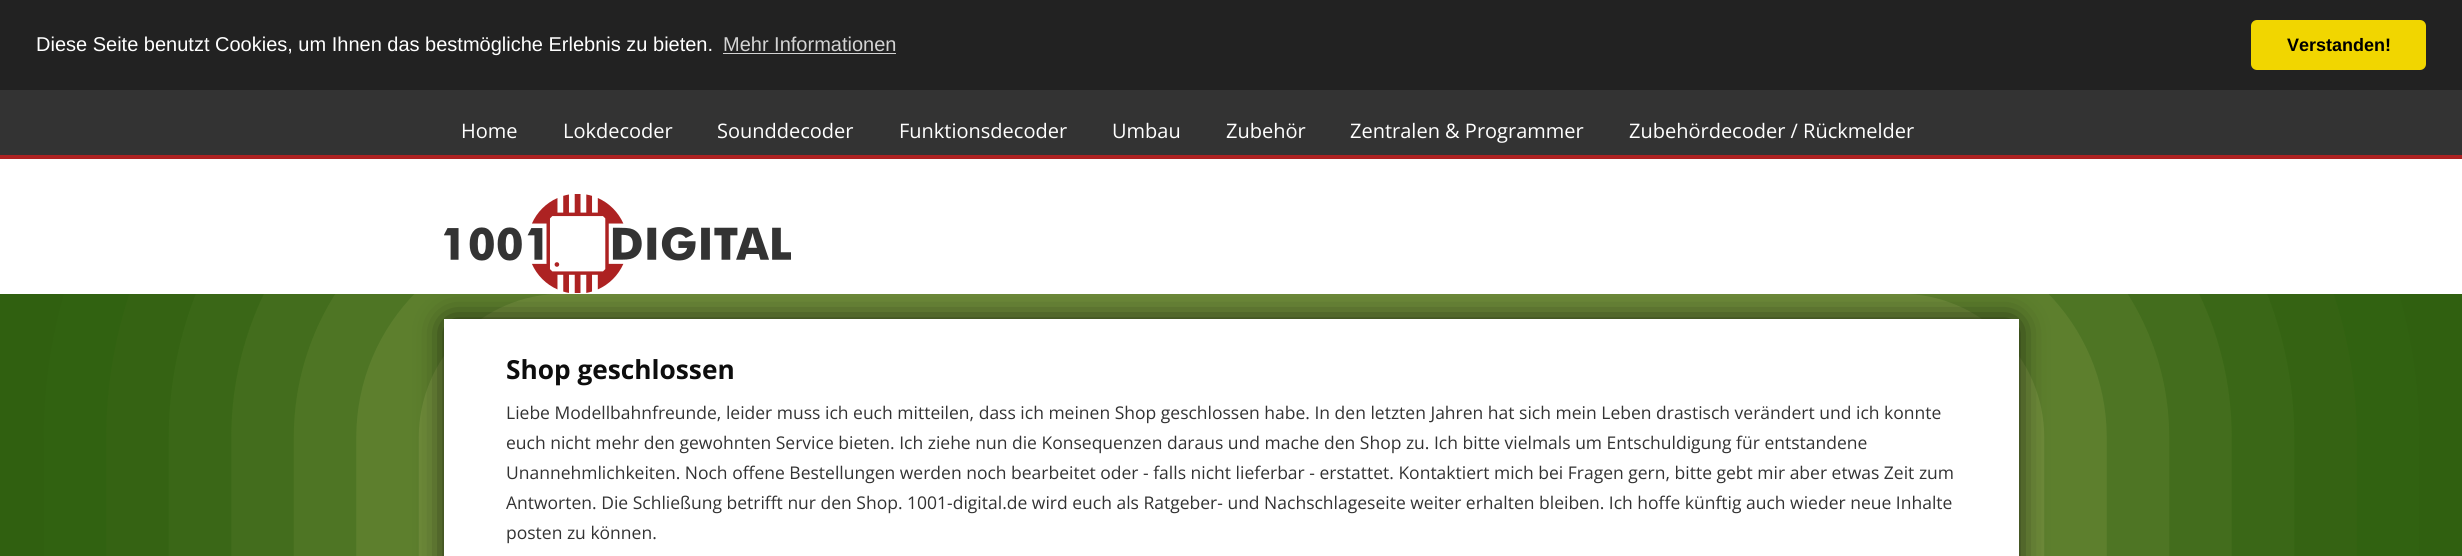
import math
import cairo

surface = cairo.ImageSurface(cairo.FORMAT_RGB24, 2462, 556)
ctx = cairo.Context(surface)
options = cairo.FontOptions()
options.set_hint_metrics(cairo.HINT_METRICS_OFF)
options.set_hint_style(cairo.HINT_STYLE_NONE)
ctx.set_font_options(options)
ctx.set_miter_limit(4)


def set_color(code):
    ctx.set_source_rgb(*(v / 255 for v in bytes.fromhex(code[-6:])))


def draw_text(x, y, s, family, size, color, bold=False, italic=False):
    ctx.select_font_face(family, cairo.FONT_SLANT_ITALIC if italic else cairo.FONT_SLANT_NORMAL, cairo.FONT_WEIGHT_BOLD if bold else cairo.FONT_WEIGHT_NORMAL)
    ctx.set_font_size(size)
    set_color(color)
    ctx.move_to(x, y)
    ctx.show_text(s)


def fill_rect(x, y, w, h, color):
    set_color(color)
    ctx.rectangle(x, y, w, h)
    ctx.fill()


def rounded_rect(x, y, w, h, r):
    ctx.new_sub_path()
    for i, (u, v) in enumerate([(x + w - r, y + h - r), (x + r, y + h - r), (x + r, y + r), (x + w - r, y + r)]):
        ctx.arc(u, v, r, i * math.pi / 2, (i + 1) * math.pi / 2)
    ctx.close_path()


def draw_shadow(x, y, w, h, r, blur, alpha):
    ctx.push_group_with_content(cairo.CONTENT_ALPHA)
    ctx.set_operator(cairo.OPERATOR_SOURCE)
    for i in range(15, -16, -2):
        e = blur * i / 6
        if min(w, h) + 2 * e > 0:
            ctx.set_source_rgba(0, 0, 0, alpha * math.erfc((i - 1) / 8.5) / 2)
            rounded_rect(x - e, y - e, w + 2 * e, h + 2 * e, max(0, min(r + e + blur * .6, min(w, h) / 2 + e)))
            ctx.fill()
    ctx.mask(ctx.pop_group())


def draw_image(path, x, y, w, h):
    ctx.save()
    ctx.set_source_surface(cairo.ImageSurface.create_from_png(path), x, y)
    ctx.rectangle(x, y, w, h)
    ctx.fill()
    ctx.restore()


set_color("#2f600f")
ctx.paint()
set_color("#abb463")
draw_shadow(450, 325, 1563, 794, 0, 187.5, 1)
fill_rect(0, 0, 2462, 90, "#222222")
draw_text(36, 51, "Diese Seite benutzt Cookies, um Ihnen das bestmögliche Erlebnis zu bieten.", "Liberation Sans", 20, "#ffffff")
draw_text(723, 51, "Mehr Informationen", "Liberation Sans", 20, "#d3d3d3")
fill_rect(723, 53, 173, 1, "#d3d3d3")
set_color("#f1d600")
rounded_rect(2251, 20, 175, 50, 6)
ctx.fill()
draw_text(2287, 51, "Verstanden!", "Liberation Sans", 18, "#000000", bold=True)
fill_rect(0, 90, 2462, 65, "#333333")
fill_rect(0, 155, 2462, 4, "#ad2222")
draw_text(461, 138, "Home", "Open Sans", 20, "#ffffff")
draw_text(563, 138, "Lokdecoder", "Open Sans", 20, "#ffffff")
draw_text(717, 138, "Sounddecoder", "Open Sans", 20, "#ffffff")
draw_text(899, 138, "Funktionsdecoder", "Open Sans", 20, "#ffffff")
draw_text(1112, 138, "Umbau", "Open Sans", 20, "#ffffff")
draw_text(1226, 138, "Zubehör", "Open Sans", 20, "#ffffff")
draw_text(1350, 138, "Zentralen & Programmer", "Open Sans", 20, "#ffffff")
draw_text(1629, 138, "Zubehördecoder / Rückmelder", "Open Sans", 20, "#ffffff")
set_color("#000000")
draw_shadow(450, 325, 1563, 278, 0, 15.5, 1)
fill_rect(0, 159, 2462, 135, "#ffffff")
draw_image("assets/img1.png", 444, 194, 347, 99)
fill_rect(444, 319, 1575, 237, "#ffffff")
draw_text(506, 379, "Shop geschlossen", "Open Sans", 26.25, "#0d0d0d", bold=True)
draw_text(506, 419, "Liebe Modellbahnfreunde, leider muss ich euch mitteilen, dass ich meinen Shop geschlossen habe. In den letzten Jahren hat sich mein Leben drastisch verändert und ich konnte", "Open Sans", 17.5, "#333333")
draw_text(506, 449, "euch nicht mehr den gewohnten Service bieten. Ich ziehe nun die Konsequenzen daraus und mache den Shop zu. Ich bitte vielmals um Entschuldigung für entstandene", "Open Sans", 17.5, "#333333")
draw_text(506, 479, "Unannehmlichkeiten. Noch offene Bestellungen werden noch bearbeitet oder - falls nicht lieferbar - erstattet. Kontaktiert mich bei Fragen gern, bitte gebt mir aber etwas Zeit zum", "Open Sans", 17.5, "#333333")
draw_text(506, 509, "Antworten. Die Schließung betrifft nur den Shop. 1001-digital.de wird euch als Ratgeber- und Nachschlageseite weiter erhalten bleiben. Ich hoffe künftig auch wieder neue Inhalte", "Open Sans", 17.5, "#333333")
draw_text(506, 539, "posten zu können.", "Open Sans", 17.5, "#333333")
surface.write_to_png("output.png")
